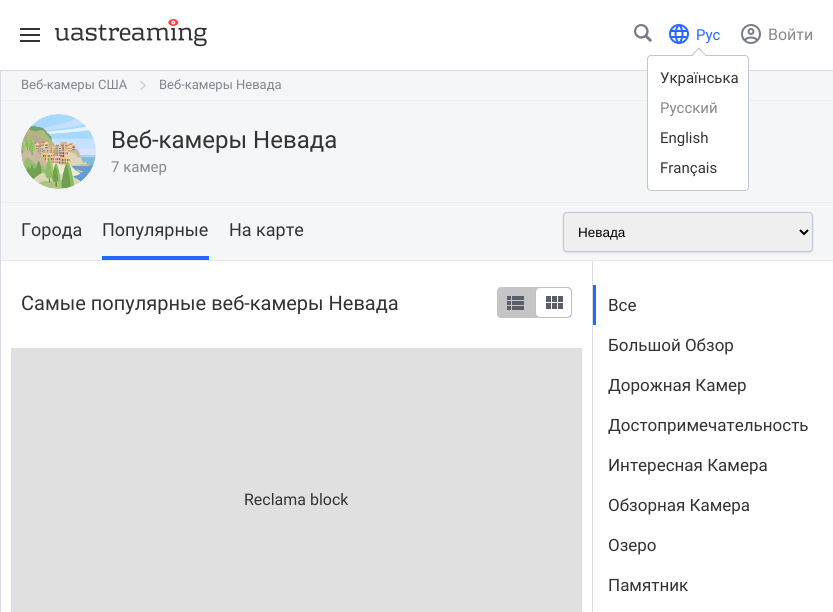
import math
import cairo

surface = cairo.ImageSurface(cairo.FORMAT_RGB24, 833, 612)
ctx = cairo.Context(surface)
options = cairo.FontOptions()
options.set_hint_metrics(cairo.HINT_METRICS_OFF)
options.set_hint_style(cairo.HINT_STYLE_NONE)
ctx.set_font_options(options)
ctx.set_miter_limit(4)


def set_color(code):
    ctx.set_source_rgb(*(v / 255 for v in bytes.fromhex(code[-6:])))


def draw_text(x, y, s, family, size, color, bold=False, italic=False):
    ctx.select_font_face(family, cairo.FONT_SLANT_ITALIC if italic else cairo.FONT_SLANT_NORMAL, cairo.FONT_WEIGHT_BOLD if bold else cairo.FONT_WEIGHT_NORMAL)
    ctx.set_font_size(size)
    set_color(color)
    ctx.move_to(x, y)
    ctx.show_text(s)


def fill_rect(x, y, w, h, color):
    set_color(color)
    ctx.rectangle(x, y, w, h)
    ctx.fill()


def rounded_rect(x, y, w, h, r):
    ctx.new_sub_path()
    for i, (u, v) in enumerate([(x + w - r, y + h - r), (x + r, y + h - r), (x + r, y + r), (x + w - r, y + r)]):
        ctx.arc(u, v, r, i * math.pi / 2, (i + 1) * math.pi / 2)
    ctx.close_path()


def draw_shadow(x, y, w, h, r, blur, alpha):
    ctx.push_group_with_content(cairo.CONTENT_ALPHA)
    ctx.set_operator(cairo.OPERATOR_SOURCE)
    for i in range(15, -16, -2):
        e = blur * i / 6
        if min(w, h) + 2 * e > 0:
            ctx.set_source_rgba(0, 0, 0, alpha * math.erfc((i - 1) / 8.5) / 2)
            rounded_rect(x - e, y - e, w + 2 * e, h + 2 * e, max(0, min(r + e + blur * .6, min(w, h) / 2 + e)))
            ctx.fill()
    ctx.mask(ctx.pop_group())


def draw_image(path, x, y, w, h):
    ctx.save()
    ctx.set_source_surface(cairo.ImageSurface.create_from_png(path), x, y)
    ctx.rectangle(x, y, w, h)
    ctx.fill()
    ctx.restore()


set_color("#ffffff")
ctx.paint()
fill_rect(20, 28, 20, 2, "#333333")
fill_rect(20, 40, 20, 2, "#333333")
fill_rect(20, 34, 20, 2, "#333333")
draw_image("assets/img1.png", 55, 19, 152, 28)
draw_image("assets/img2.png", 634, 24, 18, 18)
draw_image("assets/img3.png", 669, 24, 20, 20)
draw_text(696, 40, "Рус", "Roboto", 15, "#2568ff")
fill_rect(0, 70, 833, 1, "#d9dbe5")
fill_rect(1, 71, 832, 29, "#f5f6f7")
fill_rect(1, 100, 832, 1, "#ecedf2")
fill_rect(1, 101, 832, 101, "#f5f6f7")
set_color("#ffffff")
rounded_rect(647.5, 55.5, 101, 135, 3.5)
ctx.fill_preserve()
set_color("#c1c4d4")
ctx.set_line_width(1)
ctx.stroke()
set_color("#ffffff")
ctx.new_path()
ctx.move_to(699, 49)
ctx.line_to(706, 56)
ctx.line_to(699, 63.5)
ctx.line_to(692, 56)
ctx.close_path()
ctx.fill()
set_color("#c1c4d4")
ctx.new_path()
ctx.move_to(699, 47.5)
ctx.line_to(706.5, 55.5)
ctx.line_to(706, 56)
ctx.line_to(698, 48.5)
ctx.close_path()
ctx.fill()
ctx.new_path()
ctx.move_to(699, 47.5)
ctx.line_to(699.5, 48.5)
ctx.line_to(692, 56)
ctx.line_to(691, 55.5)
ctx.close_path()
ctx.fill()
draw_text(660, 83, "Українська", "Roboto", 15, "#333333")
draw_text(660, 113, "Русский", "Roboto", 15, "#888888")
draw_text(660, 143, "English", "Roboto", 15, "#333333")
draw_text(660, 173, "Français", "Roboto", 15, "#333333")
draw_image("assets/img4.png", 741, 24, 20, 20)
draw_text(768, 40, "Войти", "Roboto", 16, "#888888")
fill_rect(0, 71, 1, 541, "#d9dbe5")
draw_text(21, 89, "Веб-камеры США", "Roboto", 13, "#81838e")
draw_image("assets/img5.png", 140, 81, 6, 9)
draw_text(159, 89, "Веб-камеры Невада", "Roboto", 13, "#81838e")
draw_image("assets/img6.png", 21, 114, 75, 75)
draw_text(111, 148, "Веб-камеры Невада", "Roboto", 24, "#333333")
draw_text(111, 172, "7 камер", "Roboto", 15, "#888888")
fill_rect(1, 202, 832, 1, "#ecedf2")
fill_rect(1, 203, 832, 57, "#f5f6f7")
draw_text(21, 236, "Города", "Roboto", 18, "#333333")
fill_rect(102, 256, 107, 4, "#2568ff")
draw_text(102, 236, "Популярные", "Roboto", 18, "#333333")
draw_text(229, 236, "На карте", "Roboto", 18, "#333333")
set_color("#000000")
draw_shadow(563, 213, 250, 40, 4, 1, 0.1)
set_color("#efefef")
rounded_rect(563.5, 212.5, 249, 39, 3.5)
ctx.fill_preserve()
set_color("#c1c4d4")
ctx.stroke()
ctx.new_path()
ctx.move_to(800, 230)
ctx.line_to(804, 234)
ctx.line_to(808, 230)
set_color("#000000")
ctx.set_line_width(2)
ctx.stroke()
draw_text(578, 237, "Невада", "Liberation Sans", 13.5, "#000000")
fill_rect(1, 260, 832, 1, "#e7e9ee")
fill_rect(592, 261, 1, 351, "#d9dbe5")
draw_text(21, 310, "Самые популярные веб-камеры Невада", "Roboto", 20, "#333333")
set_color("#c6c5c5")
rounded_rect(497, 287, 75, 31, 4)
ctx.fill()
set_color("#000000")
draw_shadow(536, 288, 35, 29, 4, 0.5, 0.12)
set_color("#ffffff")
rounded_rect(536, 288, 35, 29, 4)
ctx.fill()
draw_image("assets/img7.png", 507, 296, 17, 14)
draw_image("assets/img8.png", 546, 296, 17, 13)
fill_rect(11, 348, 571, 264, "#e0e0e0")
draw_text(244, 505, "Reclama block", "Roboto", 16, "#333333")
fill_rect(593, 285, 3, 40, "#2568ff")
draw_text(608, 311, "Все", "Roboto", 17, "#333333")
draw_text(608, 351, "Большой Обзор", "Roboto", 17, "#333333")
draw_text(608, 391, "Дорожная Камер", "Roboto", 17, "#333333")
draw_text(608, 431, "Достопримечательность", "Roboto", 17, "#333333")
draw_text(608, 471, "Интересная Камера", "Roboto", 17, "#333333")
draw_text(608, 511, "Обзорная Камера", "Roboto", 17, "#333333")
draw_text(608, 551, "Озеро", "Roboto", 17, "#333333")
draw_text(608, 591, "Памятник", "Roboto", 17, "#333333")
surface.write_to_png("output.png")
